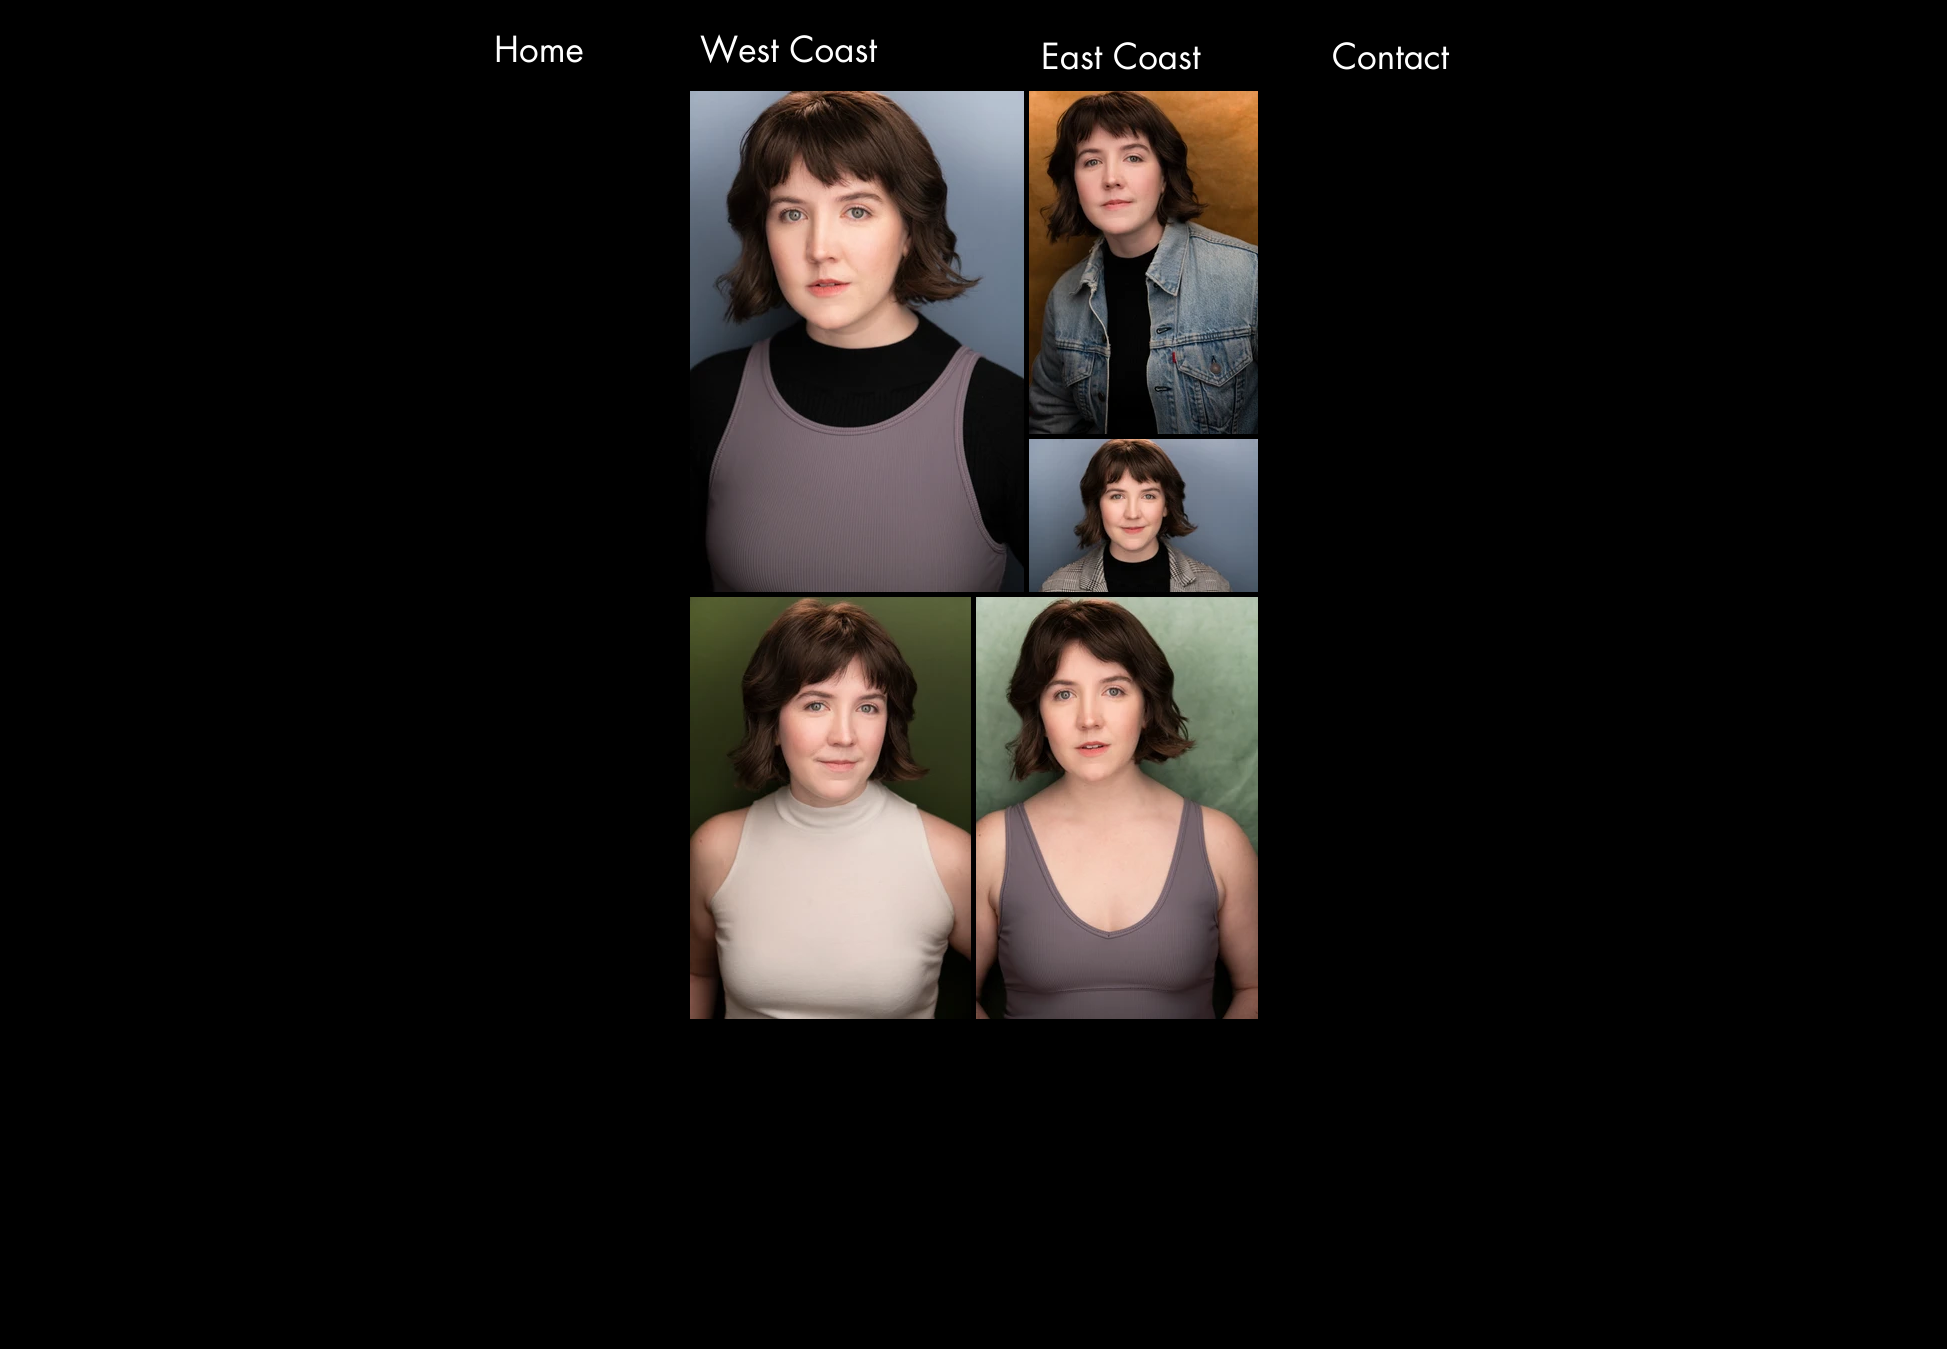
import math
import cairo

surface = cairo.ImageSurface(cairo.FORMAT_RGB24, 1947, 1349)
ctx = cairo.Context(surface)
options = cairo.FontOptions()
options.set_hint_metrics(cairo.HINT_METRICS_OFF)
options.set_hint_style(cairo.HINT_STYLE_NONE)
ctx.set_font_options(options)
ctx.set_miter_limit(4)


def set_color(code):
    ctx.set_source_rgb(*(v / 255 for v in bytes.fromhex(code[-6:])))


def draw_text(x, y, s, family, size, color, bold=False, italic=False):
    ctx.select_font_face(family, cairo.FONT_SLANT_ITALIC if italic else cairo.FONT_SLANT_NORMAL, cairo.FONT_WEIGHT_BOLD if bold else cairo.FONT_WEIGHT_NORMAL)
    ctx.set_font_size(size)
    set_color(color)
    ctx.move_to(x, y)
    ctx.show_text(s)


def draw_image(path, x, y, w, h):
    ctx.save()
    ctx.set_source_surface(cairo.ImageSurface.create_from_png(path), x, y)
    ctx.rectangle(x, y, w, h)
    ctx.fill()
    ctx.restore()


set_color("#000000")
ctx.paint()
draw_text(494, 62, "Home", "futura", 35, "#ffffff")
draw_text(700, 62, "West Coast", "futura", 35, "#ffffff")
draw_text(1041, 69, "East Coast", "futura", 35, "#ffffff")
draw_text(1332, 69, "Contact", "futura", 35, "#ffffff")
draw_image("assets/img1.png", 690, 91, 334, 501)
draw_image("assets/img2.png", 1029, 91, 229, 343)
draw_image("assets/img3.png", 1029, 439, 229, 153)
draw_image("assets/img4.png", 690, 597, 281, 422)
draw_image("assets/img5.png", 976, 597, 282, 422)
surface.write_to_png("output.png")
